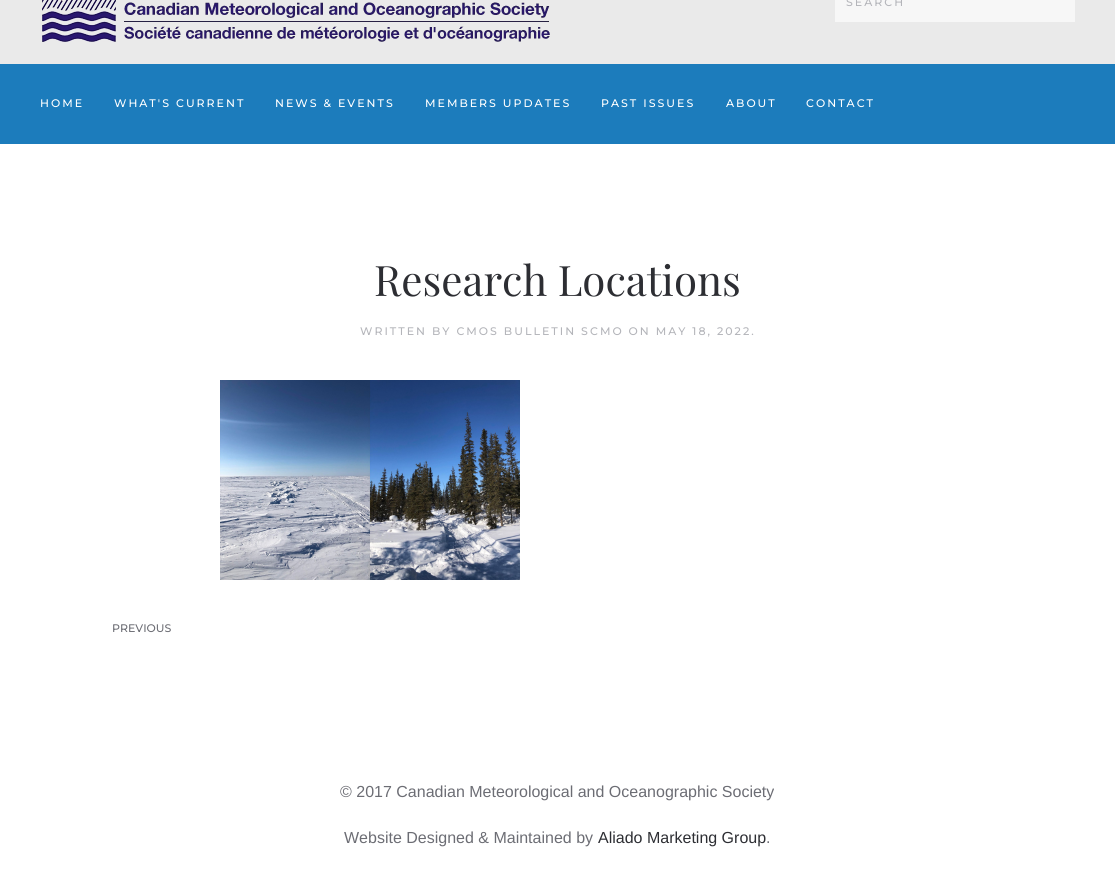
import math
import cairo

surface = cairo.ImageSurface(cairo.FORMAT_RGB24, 1115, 871)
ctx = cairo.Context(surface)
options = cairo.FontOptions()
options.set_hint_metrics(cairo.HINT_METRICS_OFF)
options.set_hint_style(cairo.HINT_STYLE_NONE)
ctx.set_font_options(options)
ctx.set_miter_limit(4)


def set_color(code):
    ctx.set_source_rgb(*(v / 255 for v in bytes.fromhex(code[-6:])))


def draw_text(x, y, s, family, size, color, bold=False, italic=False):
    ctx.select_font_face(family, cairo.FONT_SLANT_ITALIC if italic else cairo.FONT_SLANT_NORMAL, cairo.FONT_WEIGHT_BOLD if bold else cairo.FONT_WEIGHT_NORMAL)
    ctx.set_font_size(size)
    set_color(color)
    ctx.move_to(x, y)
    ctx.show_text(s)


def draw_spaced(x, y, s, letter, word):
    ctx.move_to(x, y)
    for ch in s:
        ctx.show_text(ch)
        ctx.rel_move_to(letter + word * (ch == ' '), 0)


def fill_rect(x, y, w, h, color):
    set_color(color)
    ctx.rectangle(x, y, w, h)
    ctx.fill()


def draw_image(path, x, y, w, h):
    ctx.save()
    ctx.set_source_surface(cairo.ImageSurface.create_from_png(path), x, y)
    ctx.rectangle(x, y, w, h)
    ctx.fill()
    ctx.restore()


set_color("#ffffff")
ctx.paint()
fill_rect(0, 0, 1115, 64, "#eaeaea")
draw_image("assets/img1.png", 42, 0, 508, 42)
fill_rect(835, 0, 240, 22, "#f7f7f7")
ctx.select_font_face("Montserrat Thin")
ctx.set_font_size(11)
set_color("#b4b5ba")
draw_spaced(846, 6, "SEARCH", 2, 0)
fill_rect(0, 64, 1115, 80, "#1c7cbc")
set_color("#ffffff")
draw_spaced(40, 107, "HOME", 2, 0)
draw_spaced(114, 107, "WHAT'S CURRENT", 2, 0)
draw_spaced(275, 107, "NEWS & EVENTS", 2, 0)
draw_spaced(425, 107, "MEMBERS UPDATES", 2, 0)
draw_spaced(601, 107, "PAST ISSUES", 2, 0)
draw_spaced(726, 107, "ABOUT", 2, 0)
draw_spaced(806, 107, "CONTACT", 2, 0)
draw_text(374, 296, "Research Locations", "Playfair Display", 42, "#2d2e33")
ctx.select_font_face("Montserrat Thin")
ctx.set_font_size(11)
set_color("#b4b5ba")
draw_spaced(360, 335, "WRITTEN BY CMOS BULLETIN SCMO ON MAY 18, 2022.", 2, 0)
draw_image("assets/img2.png", 220, 380, 300, 200)
draw_text(112, 632, "PREVIOUS", "Montserrat Thin", 11, "#6c6d74")
draw_text(340, 797, "© 2017 Canadian Meteorological and Oceanographic Society", "Liberation Sans", 16, "#6c6d74")
draw_text(344, 843, "Website Designed & Maintained by", "Liberation Sans", 16, "#6c6d74")
draw_text(598, 843, "Aliado Marketing Group", "Liberation Sans", 16, "#2d2e33")
draw_text(766, 843, ".", "Liberation Sans", 16, "#6c6d74")
surface.write_to_png("output.png")
